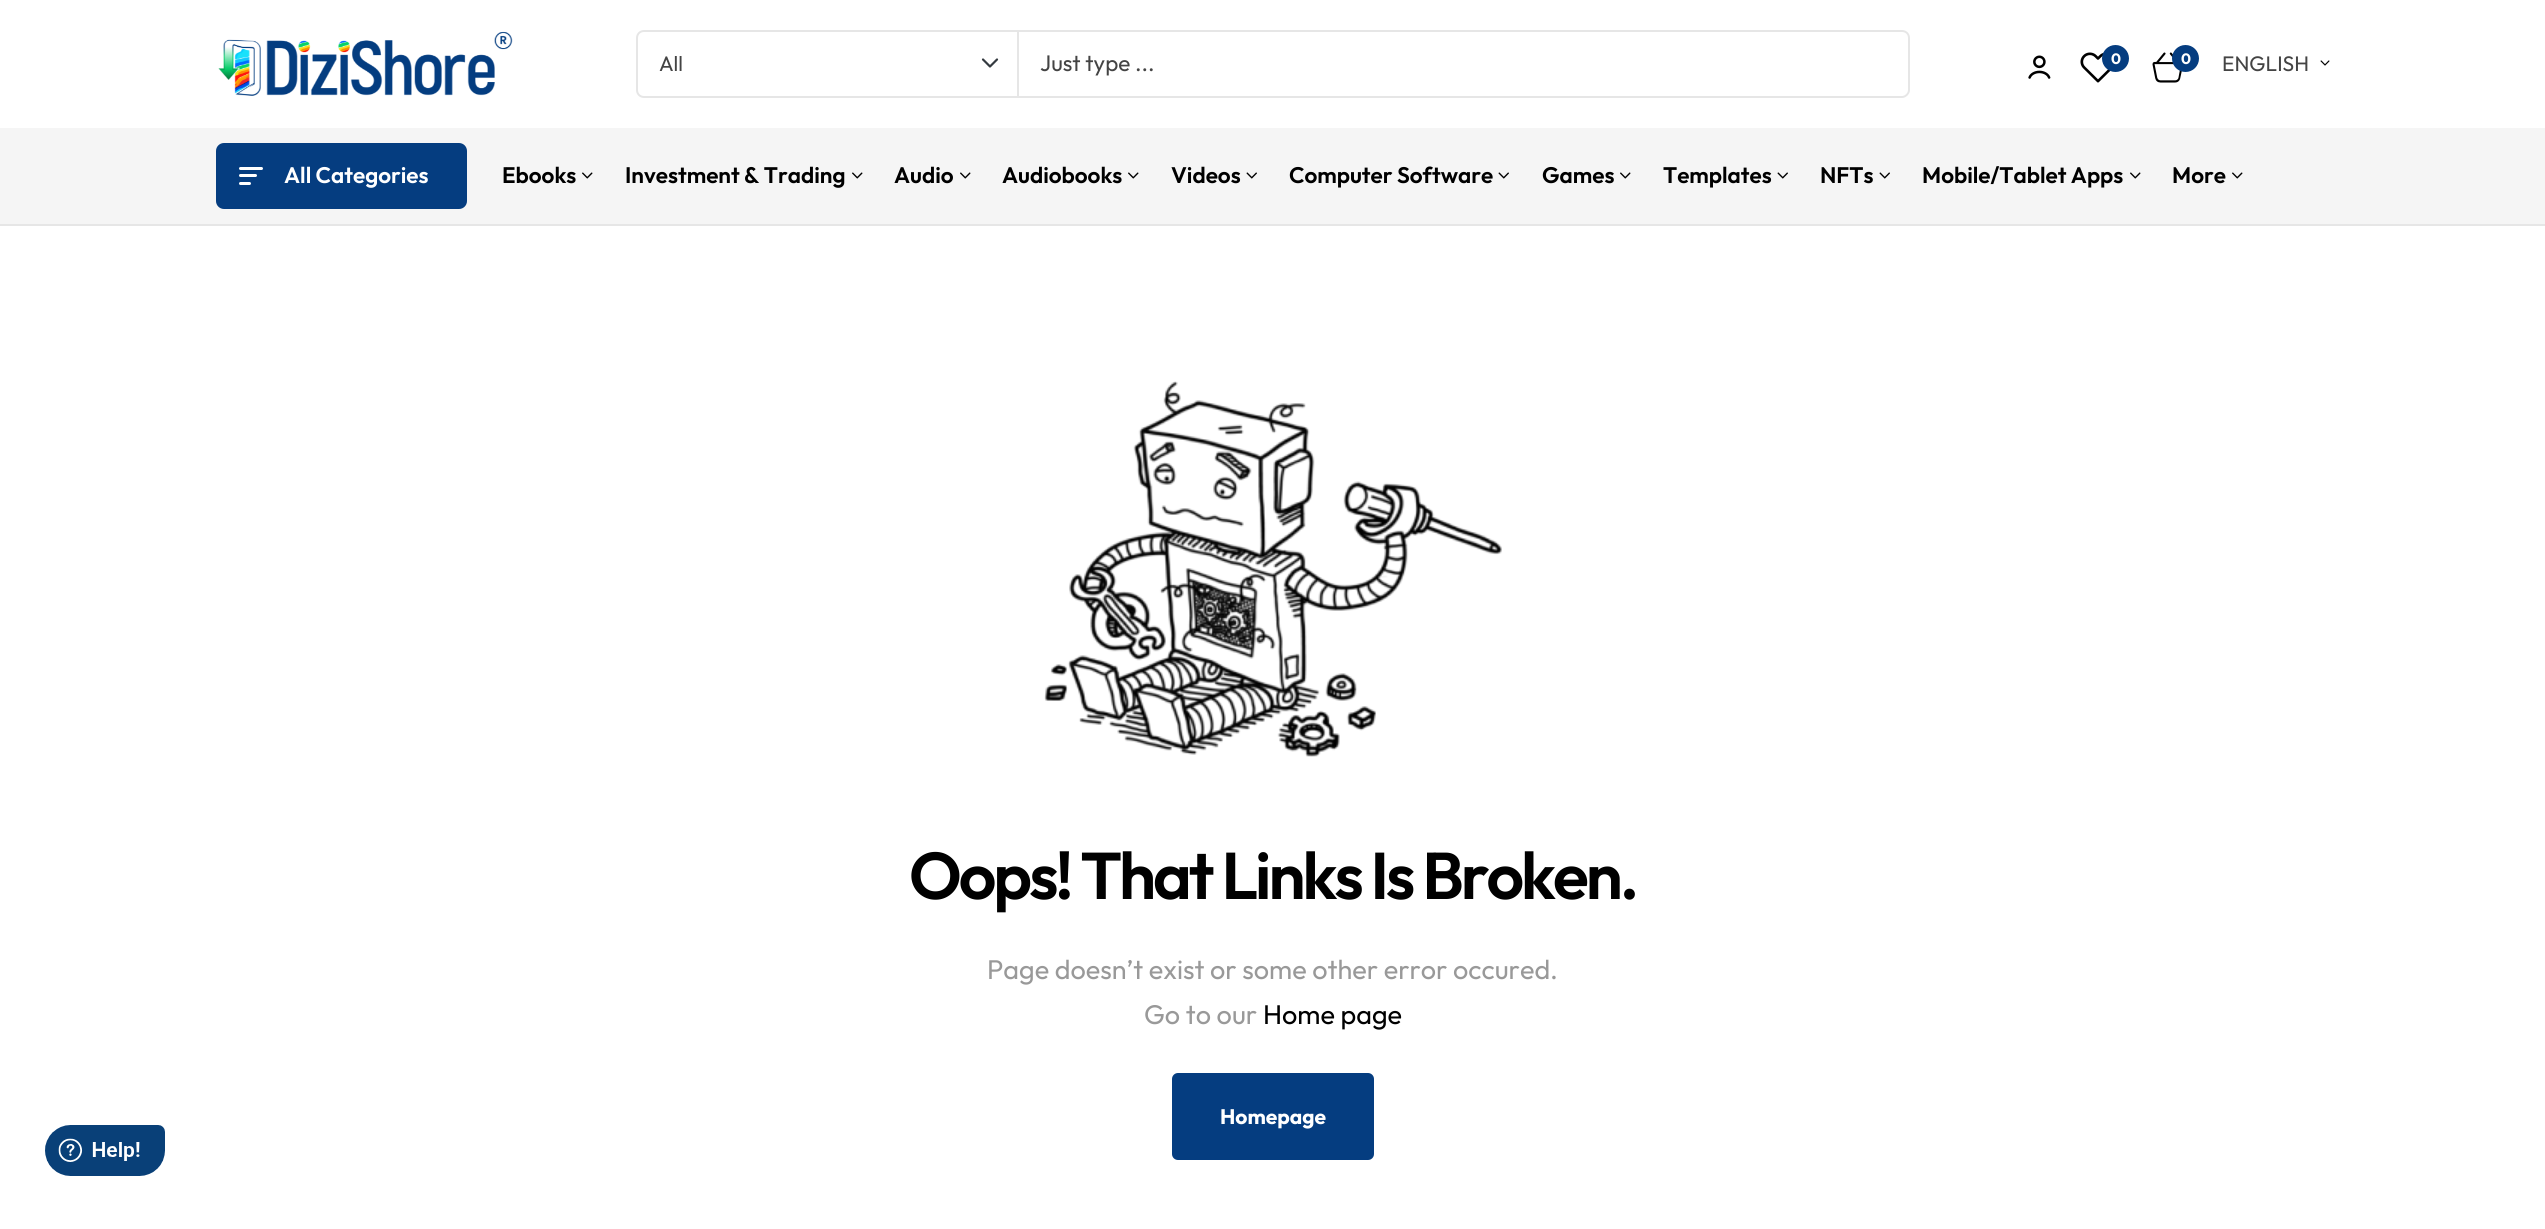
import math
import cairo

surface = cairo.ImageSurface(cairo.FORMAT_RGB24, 2545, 1229)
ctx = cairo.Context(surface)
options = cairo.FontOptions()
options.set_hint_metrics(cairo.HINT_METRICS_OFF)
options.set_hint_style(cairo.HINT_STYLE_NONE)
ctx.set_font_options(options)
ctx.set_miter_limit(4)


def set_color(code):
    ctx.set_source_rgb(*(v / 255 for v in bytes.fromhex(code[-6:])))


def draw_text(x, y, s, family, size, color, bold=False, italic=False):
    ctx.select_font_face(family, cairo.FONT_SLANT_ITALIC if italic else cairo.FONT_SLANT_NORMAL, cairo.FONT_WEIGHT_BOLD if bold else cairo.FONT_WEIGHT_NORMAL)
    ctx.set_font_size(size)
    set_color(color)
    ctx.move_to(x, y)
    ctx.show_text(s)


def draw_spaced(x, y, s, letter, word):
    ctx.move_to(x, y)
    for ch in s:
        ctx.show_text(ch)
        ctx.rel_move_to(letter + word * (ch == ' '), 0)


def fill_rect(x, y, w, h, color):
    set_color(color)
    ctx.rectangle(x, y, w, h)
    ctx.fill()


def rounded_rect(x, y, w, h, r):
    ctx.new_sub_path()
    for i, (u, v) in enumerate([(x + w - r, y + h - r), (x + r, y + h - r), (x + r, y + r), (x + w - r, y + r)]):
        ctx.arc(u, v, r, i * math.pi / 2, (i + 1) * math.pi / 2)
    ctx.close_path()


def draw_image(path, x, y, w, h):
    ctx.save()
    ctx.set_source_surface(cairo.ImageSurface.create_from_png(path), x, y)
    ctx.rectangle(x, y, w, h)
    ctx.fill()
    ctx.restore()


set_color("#ffffff")
ctx.paint()
draw_image("assets/img1.png", 218, 31, 295, 65)
set_color("#e6e6e6")
ctx.set_fill_rule(cairo.FILL_RULE_EVEN_ODD)
ctx.new_path()
ctx.move_to(1018, 30)
ctx.line_to(1902, 30)
ctx.curve_to(1906, 30, 1910, 33, 1910, 38)
ctx.line_to(1910, 90)
ctx.curve_to(1910, 94, 1906, 98, 1902, 98)
ctx.line_to(1018, 98)
ctx.close_path()
ctx.move_to(1018, 32)
ctx.line_to(1902, 32)
ctx.curve_to(1905, 32, 1908, 34, 1908, 38)
ctx.line_to(1908, 90)
ctx.curve_to(1908, 93, 1905, 96, 1902, 96)
ctx.line_to(1018, 96)
ctx.close_path()
ctx.fill()
set_color("#ffffff")
ctx.new_path()
ctx.move_to(644, 31)
ctx.line_to(1018, 31)
ctx.line_to(1018, 97)
ctx.line_to(644, 97)
ctx.curve_to(640, 97, 637, 94, 637, 90)
ctx.line_to(637, 38)
ctx.curve_to(637, 34, 640, 31, 644, 31)
ctx.close_path()
ctx.fill_preserve()
set_color("#e6e6e6")
ctx.stroke()
draw_text(659, 71, "All", "Outfit", 21, "#444444")
ctx.new_path()
ctx.move_to(983, 59.5)
ctx.line_to(990, 66.5)
ctx.line_to(997, 59.5)
set_color("#343a40")
ctx.set_line_width(2.2)
ctx.set_line_cap(cairo.LINE_CAP_ROUND)
ctx.set_line_join(cairo.LINE_JOIN_ROUND)
ctx.stroke()
draw_text(1040, 71, "Just type ...", "Outfit", 22.5, "#444444")
draw_image("assets/img2.png", 2028, 55, 23, 24)
draw_image("assets/img3.png", 2080, 52, 31, 31)
set_color("#053d80")
ctx.arc(2115.5, 58.5, 13.5, 0, 2 * math.pi)
ctx.fill()
draw_text(2111, 64, "0", "Outfit", 15, "#ffffff", bold=True)
draw_image("assets/img4.png", 2152, 52, 30, 31)
set_color("#053d80")
ctx.arc(2185.5, 58.5, 13.5, 0, 2 * math.pi)
ctx.fill()
draw_text(2181, 64, "0", "Outfit", 15, "#ffffff", bold=True)
draw_text(2222, 71, "ENGLISH", "Outfit", 21, "#444444")
draw_image("assets/img5.png", 2320, 60, 10, 6)
fill_rect(0, 128, 2545, 96, "#f5f5f5")
set_color("#053d80")
rounded_rect(216, 143, 251, 66, 8)
ctx.fill()
set_color("#ffffff")
rounded_rect(239, 167, 24, 3, 1.5)
ctx.fill()
rounded_rect(239, 174, 18, 3, 1.5)
ctx.fill()
rounded_rect(239, 182, 12, 3, 1.5)
ctx.fill()
draw_text(284, 183, "All Categories", "Outfit SemiBold", 22.5, "#ffffff")
draw_text(502, 183, "Ebooks", "Outfit SemiBold", 22.5, "#000000")
draw_image("assets/img6.png", 582, 172, 11, 7)
draw_text(625, 183, "Investment & Trading", "Outfit SemiBold", 22.5, "#000000")
draw_image("assets/img6.png", 852, 172, 11, 7)
draw_text(894, 183, "Audio", "Outfit SemiBold", 22.5, "#000000")
draw_image("assets/img6.png", 960, 172, 11, 7)
draw_text(1002, 183, "Audiobooks", "Outfit SemiBold", 22.5, "#000000")
draw_image("assets/img6.png", 1128, 172, 11, 7)
draw_text(1171, 183, "Videos", "Outfit SemiBold", 22.5, "#000000")
draw_image("assets/img7.png", 1246, 172, 11, 7)
draw_text(1289, 183, "Computer Software", "Outfit SemiBold", 22.5, "#000000")
draw_image("assets/img7.png", 1498, 172, 11, 7)
draw_text(1542, 183, "Games", "Outfit SemiBold", 22.5, "#000000")
draw_image("assets/img6.png", 1620, 172, 11, 7)
draw_text(1663, 183, "Templates", "Outfit SemiBold", 22.5, "#000000")
draw_image("assets/img7.png", 1777, 172, 11, 7)
draw_text(1820, 183, "NFTs", "Outfit SemiBold", 22.5, "#000000")
draw_image("assets/img7.png", 1879, 172, 11, 7)
draw_text(1922, 183, "Mobile/Tablet Apps", "Outfit SemiBold", 22.5, "#000000")
draw_image("assets/img6.png", 2130, 172, 11, 7)
draw_text(2172, 183, "More", "Outfit SemiBold", 22.5, "#000000")
draw_image("assets/img6.png", 2232, 172, 11, 7)
fill_rect(0, 224, 2545, 2, "#e6e6e6")
draw_image("assets/img8.png", 1044, 381, 458, 376)
ctx.set_font_size(66)
set_color("#000000")
draw_spaced(909, 899, "Oops! That Links Is Broken.", -3, 0)
draw_text(987, 979, "Page doesn’t exist or some other error occured.", "Outfit", 27, "#999999")
draw_text(1144, 1024, "Go to our", "Outfit", 27, "#999999")
draw_text(1263, 1024, "Home page", "Outfit", 27, "#000000")
set_color("#053d80")
rounded_rect(1172, 1073, 202, 87, 6)
ctx.fill()
draw_text(1220, 1124, "Homepage", "Outfit", 21, "#ffffff", bold=True)
draw_image("assets/img9.png", 45, 1125, 120, 51)
surface.write_to_png("output.png")
